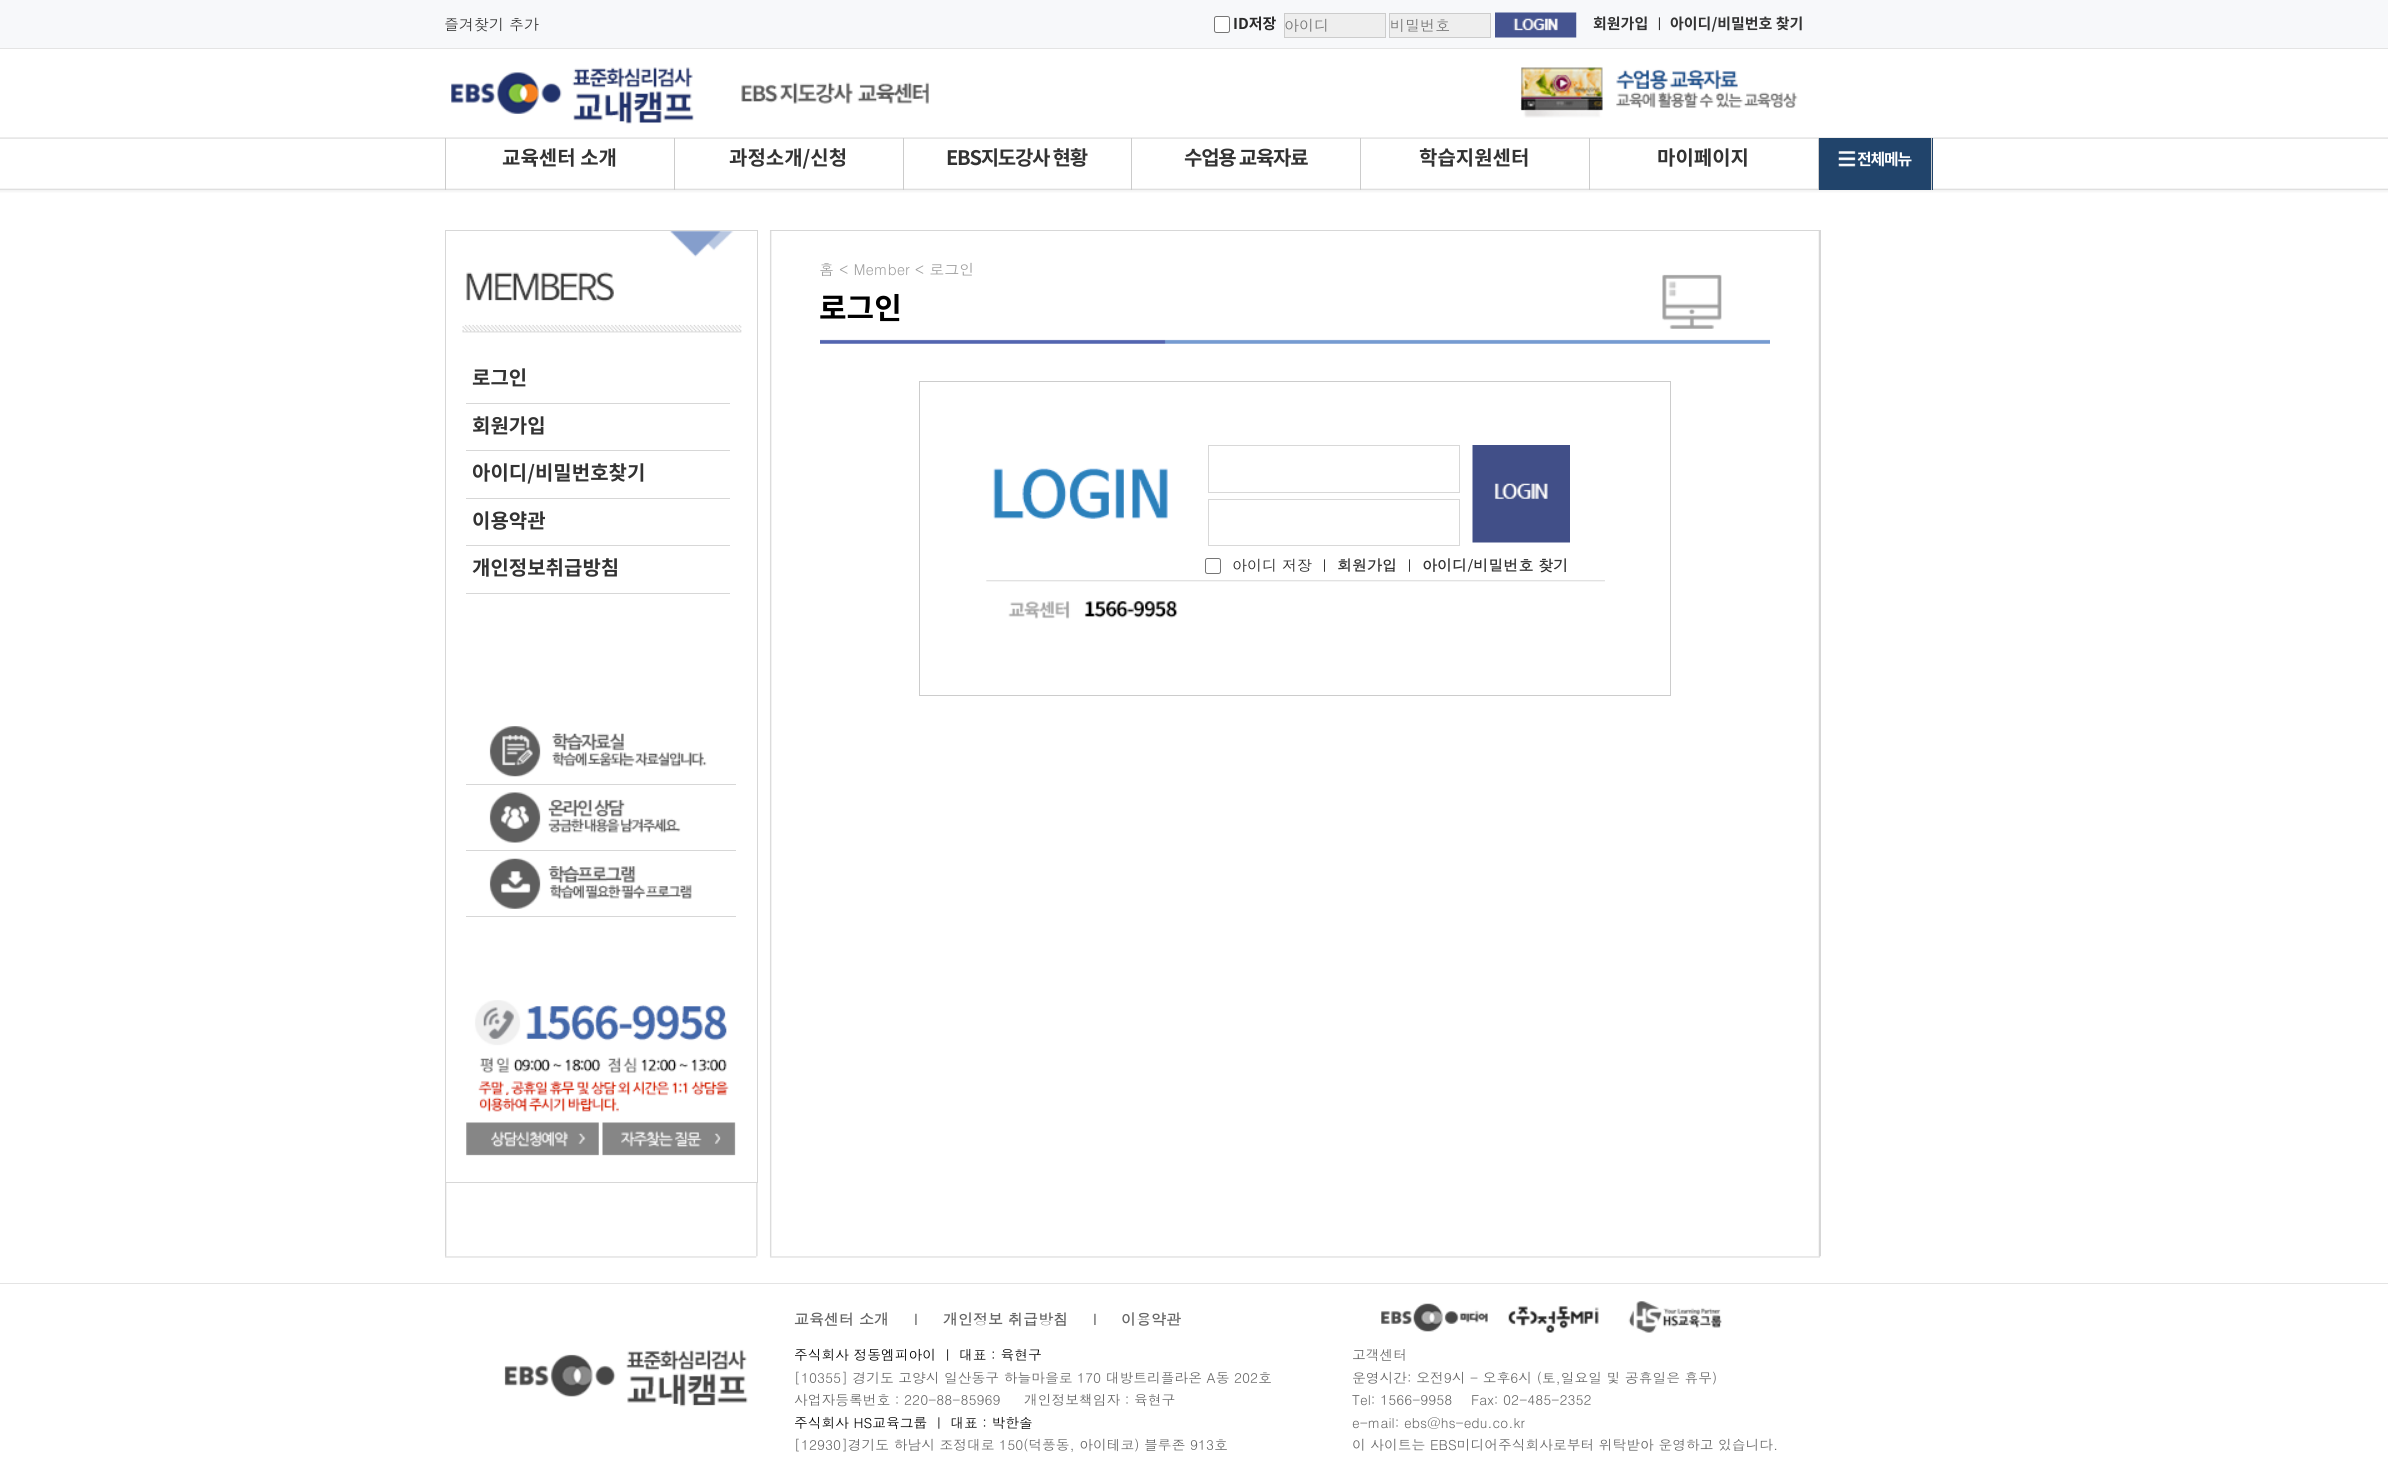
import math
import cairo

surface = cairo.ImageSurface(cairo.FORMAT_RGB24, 2388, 1468)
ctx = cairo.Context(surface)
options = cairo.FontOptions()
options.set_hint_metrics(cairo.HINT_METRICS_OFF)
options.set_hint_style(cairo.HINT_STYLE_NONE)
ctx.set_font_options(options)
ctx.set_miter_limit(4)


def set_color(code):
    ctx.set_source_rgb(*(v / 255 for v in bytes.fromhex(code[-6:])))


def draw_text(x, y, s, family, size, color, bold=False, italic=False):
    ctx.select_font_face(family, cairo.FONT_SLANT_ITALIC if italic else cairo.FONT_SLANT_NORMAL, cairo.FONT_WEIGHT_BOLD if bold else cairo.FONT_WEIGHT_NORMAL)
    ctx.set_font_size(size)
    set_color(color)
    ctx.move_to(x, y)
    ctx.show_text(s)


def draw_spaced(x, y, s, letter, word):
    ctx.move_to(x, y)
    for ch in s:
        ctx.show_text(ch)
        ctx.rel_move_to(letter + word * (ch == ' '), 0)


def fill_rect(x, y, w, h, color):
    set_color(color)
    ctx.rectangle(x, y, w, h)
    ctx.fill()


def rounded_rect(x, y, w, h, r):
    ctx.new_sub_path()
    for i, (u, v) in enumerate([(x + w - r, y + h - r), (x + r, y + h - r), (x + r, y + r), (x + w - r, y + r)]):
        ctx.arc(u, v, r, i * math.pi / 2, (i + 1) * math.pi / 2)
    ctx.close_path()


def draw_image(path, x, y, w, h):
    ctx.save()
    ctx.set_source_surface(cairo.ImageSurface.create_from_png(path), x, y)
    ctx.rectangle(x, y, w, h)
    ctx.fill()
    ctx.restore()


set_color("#ffffff")
ctx.paint()
fill_rect(0, 0, 2388, 48, "#f7f8fa")
fill_rect(0, 48, 2388, 1, "#e4e4e4")
draw_text(444, 30, "즐겨찾기 추가", "Dotum", 15, "#333333")
set_color("#ffffff")
rounded_rect(1214.5, 16.5, 15, 16, 2)
ctx.fill_preserve()
set_color("#767676")
ctx.set_line_width(1)
ctx.stroke()
draw_text(1233, 29, "ID저장", "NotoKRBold", 15, "#292929", bold=True)
set_color("#eeeeee")
ctx.rectangle(1284.5, 13.5, 101, 24)
ctx.fill_preserve()
set_color("#cccccc")
ctx.stroke()
draw_text(1284, 31, "아이디", "Dotum", 15, "#757575")
set_color("#eeeeee")
ctx.rectangle(1389.5, 13.5, 101, 24)
ctx.fill_preserve()
set_color("#cccccc")
ctx.stroke()
draw_text(1390, 31, "비밀번호", "Dotum", 15, "#757575")
draw_image("assets/img1.png", 1495, 12, 82, 26)
draw_text(1593, 29, "회원가입", "NotoKRBold", 15, "#333333", bold=True)
draw_text(1652, 29, "ㅣ", "WenQuanYi Zen Hei Medium", 15, "#292929")
draw_text(1670, 29, "아이디/비밀번호 찾기", "NotoKRBold", 15, "#333333", bold=True)
draw_image("assets/img2.png", 0, 137, 2388, 56)
draw_image("assets/img3.png", 451, 67, 243, 57)
draw_image("assets/img4.png", 741, 82, 188, 22)
draw_image("assets/img5.png", 1520, 67, 278, 51)
fill_rect(445, 138, 1, 52, "#cccccc")
draw_text(502, 165, "교육센터 소개", "NotoKRBold", 20, "#333333", bold=True)
fill_rect(674, 138, 1, 52, "#cccccc")
draw_text(729, 165, "과정소개/신청", "NotoKRBold", 20, "#333333", bold=True)
fill_rect(903, 138, 1, 52, "#cccccc")
set_color("#333333")
draw_spaced(946, 165, "EBS지도강사 현황", -1.25, 0)
fill_rect(1131, 138, 1, 52, "#cccccc")
set_color("#333333")
draw_spaced(1184, 165, "수업용 교육자료", -1.25, 0)
fill_rect(1360, 138, 1, 52, "#cccccc")
draw_text(1419, 165, "학습지원센터", "NotoKRBold", 20, "#333333", bold=True)
fill_rect(1589, 138, 1, 52, "#cccccc")
draw_text(1657, 165, "마이페이지", "NotoKRBold", 20, "#333333", bold=True)
fill_rect(1819, 138, 114, 52, "#21446b")
fill_rect(1931, 138, 1, 52, "#cccccc")
fill_rect(1818, 138, 1, 52, "#cccccc")
draw_image("assets/img6.png", 1838, 151, 18, 16)
ctx.set_font_size(16)
set_color("#ffffff")
draw_spaced(1857, 165, "전체메뉴", -1.25, 0)
draw_image("assets/img17.png", 445, 1256, 1375, 2)
draw_image("assets/img7.png", 445, 230, 1376, 1027)
ctx.rectangle(445.5, 230.5, 312, 952)
ctx.fill_preserve()
set_color("#d7d7d7")
ctx.stroke()
draw_image("assets/img8.png", 462, 231, 280, 102)
fill_rect(466, 403, 264, 1, "#d7d7d7")
draw_text(472, 385, "로그인", "NotoKRBold", 20, "#333333", bold=True)
fill_rect(466, 450, 264, 1, "#d7d7d7")
draw_text(472, 433, "회원가입", "NotoKRBold", 20, "#333333", bold=True)
fill_rect(466, 498, 264, 1, "#d7d7d7")
draw_text(472, 480, "아이디/비밀번호찾기", "NotoKRBold", 20, "#333333", bold=True)
fill_rect(466, 545, 264, 1, "#d7d7d7")
draw_text(472, 528, "이용약관", "NotoKRBold", 20, "#333333", bold=True)
fill_rect(466, 593, 264, 1, "#d7d7d7")
draw_text(472, 575, "개인정보취급방침", "NotoKRBold", 20, "#333333", bold=True)
fill_rect(466, 784, 270, 1, "#d7d7d7")
draw_image("assets/img9.png", 489, 726, 218, 51)
fill_rect(466, 850, 270, 1, "#d7d7d7")
draw_image("assets/img10.png", 489, 792, 192, 51)
fill_rect(466, 916, 270, 1, "#d7d7d7")
draw_image("assets/img11.png", 489, 858, 203, 51)
draw_image("assets/img12.png", 466, 1000, 270, 156)
fill_rect(770, 230, 1050, 1, "#d7d7d7")
draw_image("assets/img13.png", 820, 274, 950, 70)
draw_text(819, 275, "홈 < Member < 로그인", "Dotum", 15, "#9f9f9f")
draw_text(819, 319, "로그인", "NotoKRBold", 30, "#000000", bold=True)
ctx.rectangle(919.5, 381.5, 751, 314)
set_color("#cccccc")
ctx.stroke()
draw_image("assets/img14.png", 993, 468, 175, 51)
ctx.rectangle(1208.5, 445.5, 251, 47)
set_color("#d8d8d8")
ctx.stroke()
ctx.rectangle(1208.5, 499.5, 251, 46)
ctx.stroke()
draw_image("assets/img15.png", 1472, 445, 98, 98)
rounded_rect(1205.5, 558.5, 15, 15, 2)
set_color("#767676")
ctx.stroke()
draw_text(1232, 571, "아이디 저장 ㅣ", "Dotum", 15, "#292929")
draw_text(1337, 571, "회원가입", "Dotum", 15, "#333333", bold=True)
draw_text(1402, 571, "ㅣ", "Dotum", 15, "#292929")
draw_text(1422, 571, "아이디/비밀번호 찾기", "Dotum", 15, "#333333", bold=True)
draw_image("assets/img16.png", 986, 580, 619, 39)
fill_rect(0, 1283, 2388, 1, "#e4e4e4")
draw_text(794, 1325, "교육센터 소개", "Dotum", 15, "#666666", bold=True)
draw_text(914, 1325, "l", "Dotum", 15, "#666666", bold=True)
draw_text(943, 1325, "개인정보 취급방침", "Dotum", 15, "#666666", bold=True)
draw_text(1093, 1325, "l", "Dotum", 15, "#666666", bold=True)
draw_text(1121, 1325, "이용약관", "Dotum", 15, "#666666", bold=True)
draw_image("assets/img18.png", 1381, 1303, 107, 29)
draw_image("assets/img19.png", 1508, 1306, 91, 27)
draw_image("assets/img20.png", 1628, 1301, 94, 32)
draw_image("assets/img21.png", 504, 1349, 244, 58)
draw_text(794, 1360, "주식회사 정동엠피아이 ㅣ 대표 : 육현구", "Dotum", 13.75, "#000000")
draw_text(794, 1383, "[10355] 경기도 고양시 일산동구 하늘마을로 170 대방트리플라온 A동 202호", "Dotum", 13.75, "#666666")
draw_text(794, 1405, "사업자등록번호 : 220-88-85969", "Dotum", 13.75, "#666666")
draw_text(1024, 1405, "개인정보책임자 : 육현구", "Dotum", 13.75, "#666666")
draw_text(794, 1428, "주식회사 HS교육그룹 ㅣ 대표 : 박한솔", "Dotum", 13.75, "#000000")
draw_text(794, 1450, "[12930]경기도 하남시 조정대로 150(덕풍동, 아이테코) 블루존 913호", "Dotum", 13.75, "#666666")
draw_text(1352, 1360, "고객센터", "Dotum", 13.75, "#666666")
draw_text(1352, 1383, "운영시간: 오전9시 - 오후6시 (토,일요일 및 공휴일은 휴무)", "Dotum", 13.75, "#666666")
draw_text(1352, 1405, "Tel: 1566-9958", "Dotum", 13.75, "#666666")
draw_text(1471, 1405, "Fax: 02-485-2352", "Dotum", 13.75, "#666666")
draw_text(1352, 1428, "e-mail: ebs@hs-edu.co.kr", "Dotum", 13.75, "#666666")
draw_text(1352, 1450, "이 사이트는 EBS미디어주식회사로부터 위탁받아 운영하고 있습니다.", "Dotum", 13.75, "#666666")
surface.write_to_png("output.png")
